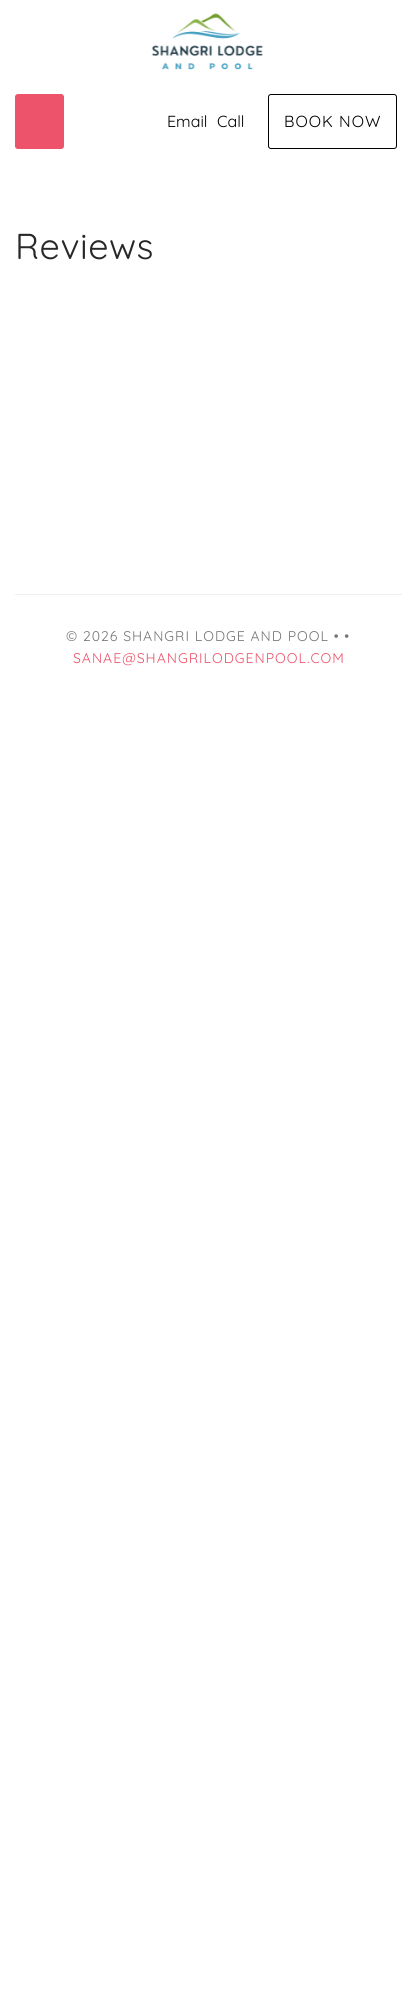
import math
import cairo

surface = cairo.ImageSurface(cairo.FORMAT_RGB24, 417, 2009)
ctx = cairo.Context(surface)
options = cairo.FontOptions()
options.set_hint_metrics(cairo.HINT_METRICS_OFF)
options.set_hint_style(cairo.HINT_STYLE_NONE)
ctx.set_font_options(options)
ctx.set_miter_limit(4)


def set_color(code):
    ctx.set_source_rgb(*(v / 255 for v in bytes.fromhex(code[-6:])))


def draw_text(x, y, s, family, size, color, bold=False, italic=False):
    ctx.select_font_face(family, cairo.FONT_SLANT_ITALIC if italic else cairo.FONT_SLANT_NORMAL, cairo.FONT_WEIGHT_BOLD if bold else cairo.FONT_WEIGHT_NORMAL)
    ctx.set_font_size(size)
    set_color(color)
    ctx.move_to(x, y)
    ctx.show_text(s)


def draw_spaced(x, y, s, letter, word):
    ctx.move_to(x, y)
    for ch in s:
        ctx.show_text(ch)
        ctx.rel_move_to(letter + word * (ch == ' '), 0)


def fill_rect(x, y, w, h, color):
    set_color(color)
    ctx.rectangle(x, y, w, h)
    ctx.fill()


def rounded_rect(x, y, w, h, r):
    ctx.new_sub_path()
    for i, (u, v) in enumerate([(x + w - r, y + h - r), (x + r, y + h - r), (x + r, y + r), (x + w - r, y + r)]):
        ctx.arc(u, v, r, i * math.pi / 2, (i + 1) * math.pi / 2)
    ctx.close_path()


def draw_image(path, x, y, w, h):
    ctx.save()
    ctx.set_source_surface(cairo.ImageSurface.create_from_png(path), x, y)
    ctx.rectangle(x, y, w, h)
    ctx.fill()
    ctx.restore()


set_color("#ffffff")
ctx.paint()
draw_image("assets/img1.png", 151, 13, 113, 57)
set_color("#ed536a")
rounded_rect(15.5, 94.5, 48, 54, 2.5)
ctx.fill_preserve()
ctx.set_line_width(1)
ctx.stroke()
draw_text(167, 127, "Email", "Quicksand", 16, "#000000")
draw_text(217, 127, "Call", "Quicksand", 16, "#000000")
rounded_rect(268.5, 94.5, 128, 54, 2.5)
ctx.stroke()
draw_spaced(284, 127, "BOOK NOW", 1, 0)
ctx.set_font_size(36)
set_color("#292727")
draw_spaced(15, 259, "Reviews", 0.5, 0)
fill_rect(15, 594, 387, 1, "#eeeeee")
ctx.set_font_size(14)
set_color("#757575")
draw_spaced(66, 641, "© 2026 SHANGRI LODGE AND POOL • •", 1, 0)
set_color("#ed536a")
draw_spaced(73, 663, "SANAE@SHANGRILODGENPOOL.COM", 1, 0)
surface.write_to_png("output.png")
